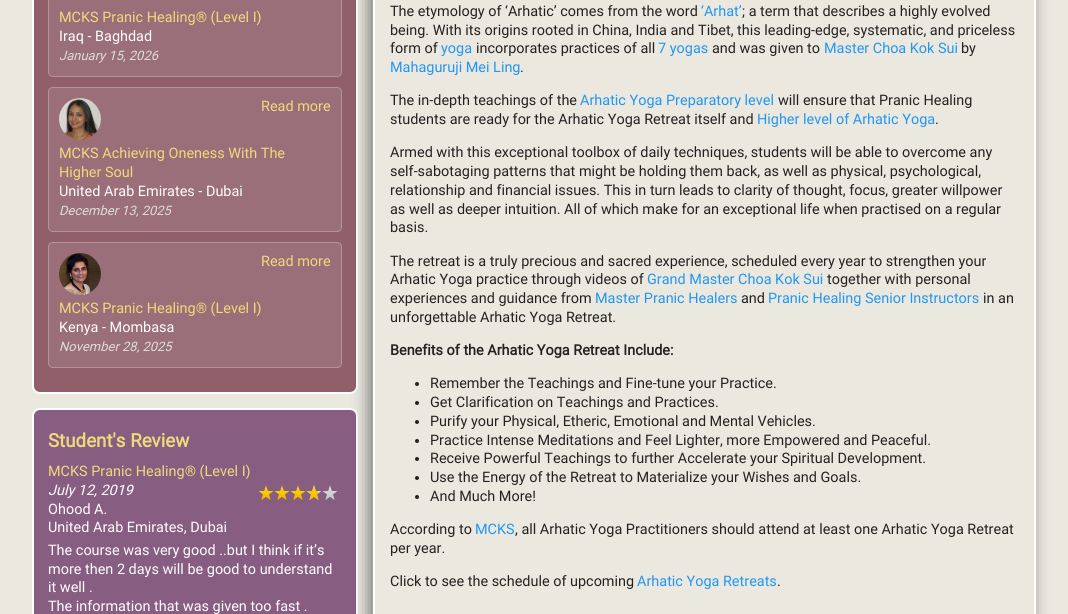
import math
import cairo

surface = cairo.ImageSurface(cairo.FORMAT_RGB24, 1068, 614)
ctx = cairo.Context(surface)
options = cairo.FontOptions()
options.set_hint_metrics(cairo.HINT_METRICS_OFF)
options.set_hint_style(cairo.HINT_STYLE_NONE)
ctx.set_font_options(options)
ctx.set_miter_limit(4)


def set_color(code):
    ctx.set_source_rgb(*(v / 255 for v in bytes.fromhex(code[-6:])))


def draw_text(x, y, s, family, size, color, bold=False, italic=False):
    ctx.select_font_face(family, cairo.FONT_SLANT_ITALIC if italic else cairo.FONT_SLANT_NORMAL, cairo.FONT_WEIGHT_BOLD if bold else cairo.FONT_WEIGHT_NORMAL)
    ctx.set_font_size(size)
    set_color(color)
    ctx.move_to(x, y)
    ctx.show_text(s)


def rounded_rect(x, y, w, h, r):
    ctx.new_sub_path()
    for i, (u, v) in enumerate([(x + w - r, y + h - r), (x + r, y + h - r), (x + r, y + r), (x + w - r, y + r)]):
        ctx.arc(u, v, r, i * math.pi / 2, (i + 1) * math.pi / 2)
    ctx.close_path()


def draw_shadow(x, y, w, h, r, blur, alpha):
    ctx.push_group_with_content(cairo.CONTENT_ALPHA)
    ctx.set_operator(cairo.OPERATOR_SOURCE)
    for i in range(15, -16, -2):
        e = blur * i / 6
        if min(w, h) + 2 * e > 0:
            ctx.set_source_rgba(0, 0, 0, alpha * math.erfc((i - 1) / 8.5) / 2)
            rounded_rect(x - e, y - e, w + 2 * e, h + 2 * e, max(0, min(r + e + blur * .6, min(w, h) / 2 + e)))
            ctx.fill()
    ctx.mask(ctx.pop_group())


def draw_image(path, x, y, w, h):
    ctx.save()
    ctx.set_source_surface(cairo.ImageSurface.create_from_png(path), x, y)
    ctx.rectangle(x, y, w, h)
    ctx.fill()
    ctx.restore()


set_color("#eae8df")
ctx.paint()
set_color("#905f6a")
rounded_rect(33, -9, 324, 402, 7)
ctx.fill_preserve()
set_color("#ffffff")
ctx.stroke()
set_color("#9b6f79")
rounded_rect(48, -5, 294, 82, 5)
ctx.fill()
rounded_rect(48.5, -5.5, 293, 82, 4.5)
ctx.set_source_rgba(1, 1, 1, 0.25)
ctx.set_line_width(1)
ctx.stroke()
draw_text(59, 22, "MCKS Pranic Healing® (Level I)", "Roboto", 14.45, "#f1d97b")
draw_text(59, 41, "Iraq - Baghdad", "Roboto", 14.45, "#ffffff")
draw_text(59, 60, "January 15, 2026", "Roboto", 13, "#dddddd", italic=True)
set_color("#9b6f79")
rounded_rect(48, 87, 294, 145, 5)
ctx.fill()
rounded_rect(48.5, 87.5, 293, 144, 4.5)
ctx.set_source_rgba(1, 1, 1, 0.25)
ctx.stroke()
draw_image("assets/img1.png", 59, 98, 42, 42)
draw_text(261, 111, "Read more", "Roboto", 14.45, "#f1d97b")
draw_text(59, 158, "MCKS Achieving Oneness With The", "Roboto", 14.45, "#f1d97b")
draw_text(59, 177, "Higher Soul", "Roboto", 14.45, "#f1d97b")
draw_text(59, 196, "United Arab Emirates - Dubai", "Roboto", 14.45, "#ffffff")
draw_text(59, 215, "December 13, 2025", "Roboto", 13, "#dddddd", italic=True)
set_color("#9b6f79")
rounded_rect(48, 242, 294, 126, 5)
ctx.fill()
rounded_rect(48.5, 242.5, 293, 125, 4.5)
ctx.set_source_rgba(1, 1, 1, 0.25)
ctx.stroke()
draw_image("assets/img2.png", 59, 253, 42, 42)
draw_text(261, 266, "Read more", "Roboto", 14.45, "#f1d97b")
draw_text(59, 313, "MCKS Pranic Healing® (Level I)", "Roboto", 14.45, "#f1d97b")
draw_text(59, 332, "Kenya - Mombasa", "Roboto", 14.45, "#ffffff")
draw_text(59, 351, "November 28, 2025", "Roboto", 13, "#dddddd", italic=True)
set_color("#885d82")
rounded_rect(33, 409, 324, 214, 7)
ctx.fill_preserve()
set_color("#ffffff")
ctx.set_line_width(2)
ctx.stroke()
draw_text(48, 447, "Student's Review", "Roboto", 18.75, "#f1d97b", bold=True)
draw_text(48, 476, "MCKS Pranic Healing® (Level I)", "Roboto", 14.45, "#f1d97b")
draw_text(48, 495, "July 12, 2019", "Roboto", 14.45, "#ffffff", italic=True)
draw_image("assets/img3.png", 258, 485, 80, 15)
draw_text(48, 514, "Ohood A.", "Roboto", 14.45, "#ffffff")
draw_text(48, 532, "United Arab Emirates, Dubai", "Roboto", 14.45, "#ffffff")
draw_text(48, 555, "The course was very good ..but I think if it’s", "Roboto", 14.45, "#ffffff")
draw_text(48, 574, "more then 2 days will be good to understand", "Roboto", 14.45, "#ffffff")
draw_text(48, 592, "it well .", "Roboto", 14.45, "#ffffff")
draw_text(48, 611, "The information that was given too fast .", "Roboto", 14.45, "#ffffff")
ctx.save()
ctx.set_fill_rule(cairo.FILL_RULE_EVEN_ODD)
ctx.new_path()
ctx.move_to(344, 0)
ctx.line_to(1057, 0)
ctx.line_to(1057, 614)
ctx.line_to(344, 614)
ctx.close_path()
ctx.move_to(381, -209)
ctx.line_to(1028, -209)
ctx.curve_to(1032.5, -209, 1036, -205.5, 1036, -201)
ctx.line_to(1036, 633)
ctx.curve_to(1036, 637.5, 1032.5, 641, 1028, 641)
ctx.line_to(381, 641)
ctx.curve_to(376.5, 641, 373, 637.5, 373, 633)
ctx.line_to(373, -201)
ctx.curve_to(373, -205.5, 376.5, -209, 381, -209)
ctx.close_path()
ctx.clip()
set_color("#000000")
draw_shadow(369, -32, 663, 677, 8, 8, 0.5)
ctx.restore()
ctx.rectangle(374, -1, 661, 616)
ctx.stroke()
draw_text(390, 16, "The etymology of ‘Arhatic’ comes from the word", "Roboto", 14.45, "#222222")
draw_text(701, 16, "‘Arhat’", "Roboto", 14.45, "#2196f3")
draw_text(742, 16, "; a term that describes a highly evolved", "Roboto", 14.45, "#222222")
draw_text(390, 35, "being. With its origins rooted in China, India and Tibet, this leading-edge, systematic, and priceless", "Roboto", 14.45, "#222222")
draw_text(390, 53, "form of", "Roboto", 14.45, "#222222")
draw_text(441, 53, "yoga", "Roboto", 14.45, "#2196f3")
draw_text(476, 53, "incorporates practices of all", "Roboto", 14.45, "#222222")
draw_text(658, 53, "7 yogas", "Roboto", 14.45, "#2196f3")
draw_text(712, 53, "and was given to", "Roboto", 14.45, "#222222")
draw_text(824, 53, "Master Choa Kok Sui", "Roboto", 14.45, "#2196f3")
draw_text(961, 53, "by", "Roboto", 14.45, "#222222")
draw_text(390, 72, "Mahaguruji Mei Ling", "Roboto", 14.45, "#2196f3")
draw_text(520, 72, ".", "Roboto", 14.45, "#222222")
draw_text(390, 105, "The in-depth teachings of the", "Roboto", 14.45, "#222222")
draw_text(580, 105, "Arhatic Yoga Preparatory level", "Roboto", 14.45, "#2196f3")
draw_text(778, 105, "will ensure that Pranic Healing", "Roboto", 14.45, "#222222")
draw_text(390, 124, "students are ready for the Arhatic Yoga Retreat itself and", "Roboto", 14.45, "#222222")
draw_text(757, 124, "Higher level of Arhatic Yoga", "Roboto", 14.45, "#2196f3")
draw_text(935, 124, ".", "Roboto", 14.45, "#222222")
draw_text(390, 157, "Armed with this exceptional toolbox of daily techniques, students will be able to overcome any", "Roboto", 14.45, "#222222")
draw_text(390, 176, "self-sabotaging patterns that might be holding them back, as well as physical, psychological,", "Roboto", 14.45, "#222222")
draw_text(390, 195, "relationship and financial issues. This in turn leads to clarity of thought, focus, greater willpower", "Roboto", 14.45, "#222222")
draw_text(390, 214, "as well as deeper intuition. All of which make for an exceptional life when practised on a regular", "Roboto", 14.45, "#222222")
draw_text(390, 232, "basis.", "Roboto", 14.45, "#222222")
draw_text(390, 266, "The retreat is a truly precious and sacred experience, scheduled every year to strengthen your", "Roboto", 14.45, "#222222")
draw_text(390, 284, "Arhatic Yoga practice through videos of", "Roboto", 14.45, "#222222")
draw_text(647, 284, "Grand Master Choa Kok Sui", "Roboto", 14.45, "#2196f3")
draw_text(827, 284, "together with personal", "Roboto", 14.45, "#222222")
draw_text(390, 303, "experiences and guidance from", "Roboto", 14.45, "#222222")
draw_text(595, 303, "Master Pranic Healers", "Roboto", 14.45, "#2196f3")
draw_text(741, 303, "and", "Roboto", 14.45, "#222222")
draw_text(768, 303, "Pranic Healing Senior Instructors", "Roboto", 14.45, "#2196f3")
draw_text(983, 303, "in an", "Roboto", 14.45, "#222222")
draw_text(390, 322, "unforgettable Arhatic Yoga Retreat.", "Roboto", 14.45, "#222222")
draw_text(390, 355, "Benefits of the Arhatic Yoga Retreat Include:", "Roboto", 14.45, "#222222", bold=True)
ctx.new_path()
ctx.arc(417, 384, 2, 0, 2 * math.pi)
ctx.fill()
draw_text(430, 388, "Remember the Teachings and Fine-tune your Practice.", "Roboto", 14.45, "#222222")
ctx.new_path()
ctx.arc(417, 403, 2, 0, 2 * math.pi)
ctx.fill()
draw_text(430, 407, "Get Clarification on Teachings and Practices.", "Roboto", 14.45, "#222222")
ctx.new_path()
ctx.arc(417, 422, 2, 0, 2 * math.pi)
ctx.fill()
draw_text(430, 426, "Purify your Physical, Etheric, Emotional and Mental Vehicles.", "Roboto", 14.45, "#222222")
ctx.new_path()
ctx.arc(417, 441, 2, 0, 2 * math.pi)
ctx.fill()
draw_text(430, 445, "Practice Intense Meditations and Feel Lighter, more Empowered and Peaceful.", "Roboto", 14.45, "#222222")
ctx.new_path()
ctx.arc(417, 459, 2, 0, 2 * math.pi)
ctx.fill()
draw_text(430, 463, "Receive Powerful Teachings to further Accelerate your Spiritual Development.", "Roboto", 14.45, "#222222")
ctx.new_path()
ctx.arc(417, 478, 2, 0, 2 * math.pi)
ctx.fill()
draw_text(430, 482, "Use the Energy of the Retreat to Materialize your Wishes and Goals.", "Roboto", 14.45, "#222222")
ctx.new_path()
ctx.arc(417, 497, 2, 0, 2 * math.pi)
ctx.fill()
draw_text(430, 501, "And Much More!", "Roboto", 14.45, "#222222")
draw_text(390, 534, "According to", "Roboto", 14.45, "#222222")
draw_text(475, 534, "MCKS", "Roboto", 14.45, "#2196f3")
draw_text(515, 534, ", all Arhatic Yoga Practitioners should attend at least one Arhatic Yoga Retreat", "Roboto", 14.45, "#222222")
draw_text(390, 553, "per year.", "Roboto", 14.45, "#222222")
draw_text(390, 586, "Click to see the schedule of upcoming", "Roboto", 14.45, "#222222")
draw_text(637, 586, "Arhatic Yoga Retreats", "Roboto", 14.45, "#2196f3")
draw_text(777, 586, ".", "Roboto", 14.45, "#222222")
surface.write_to_png("output.png")
